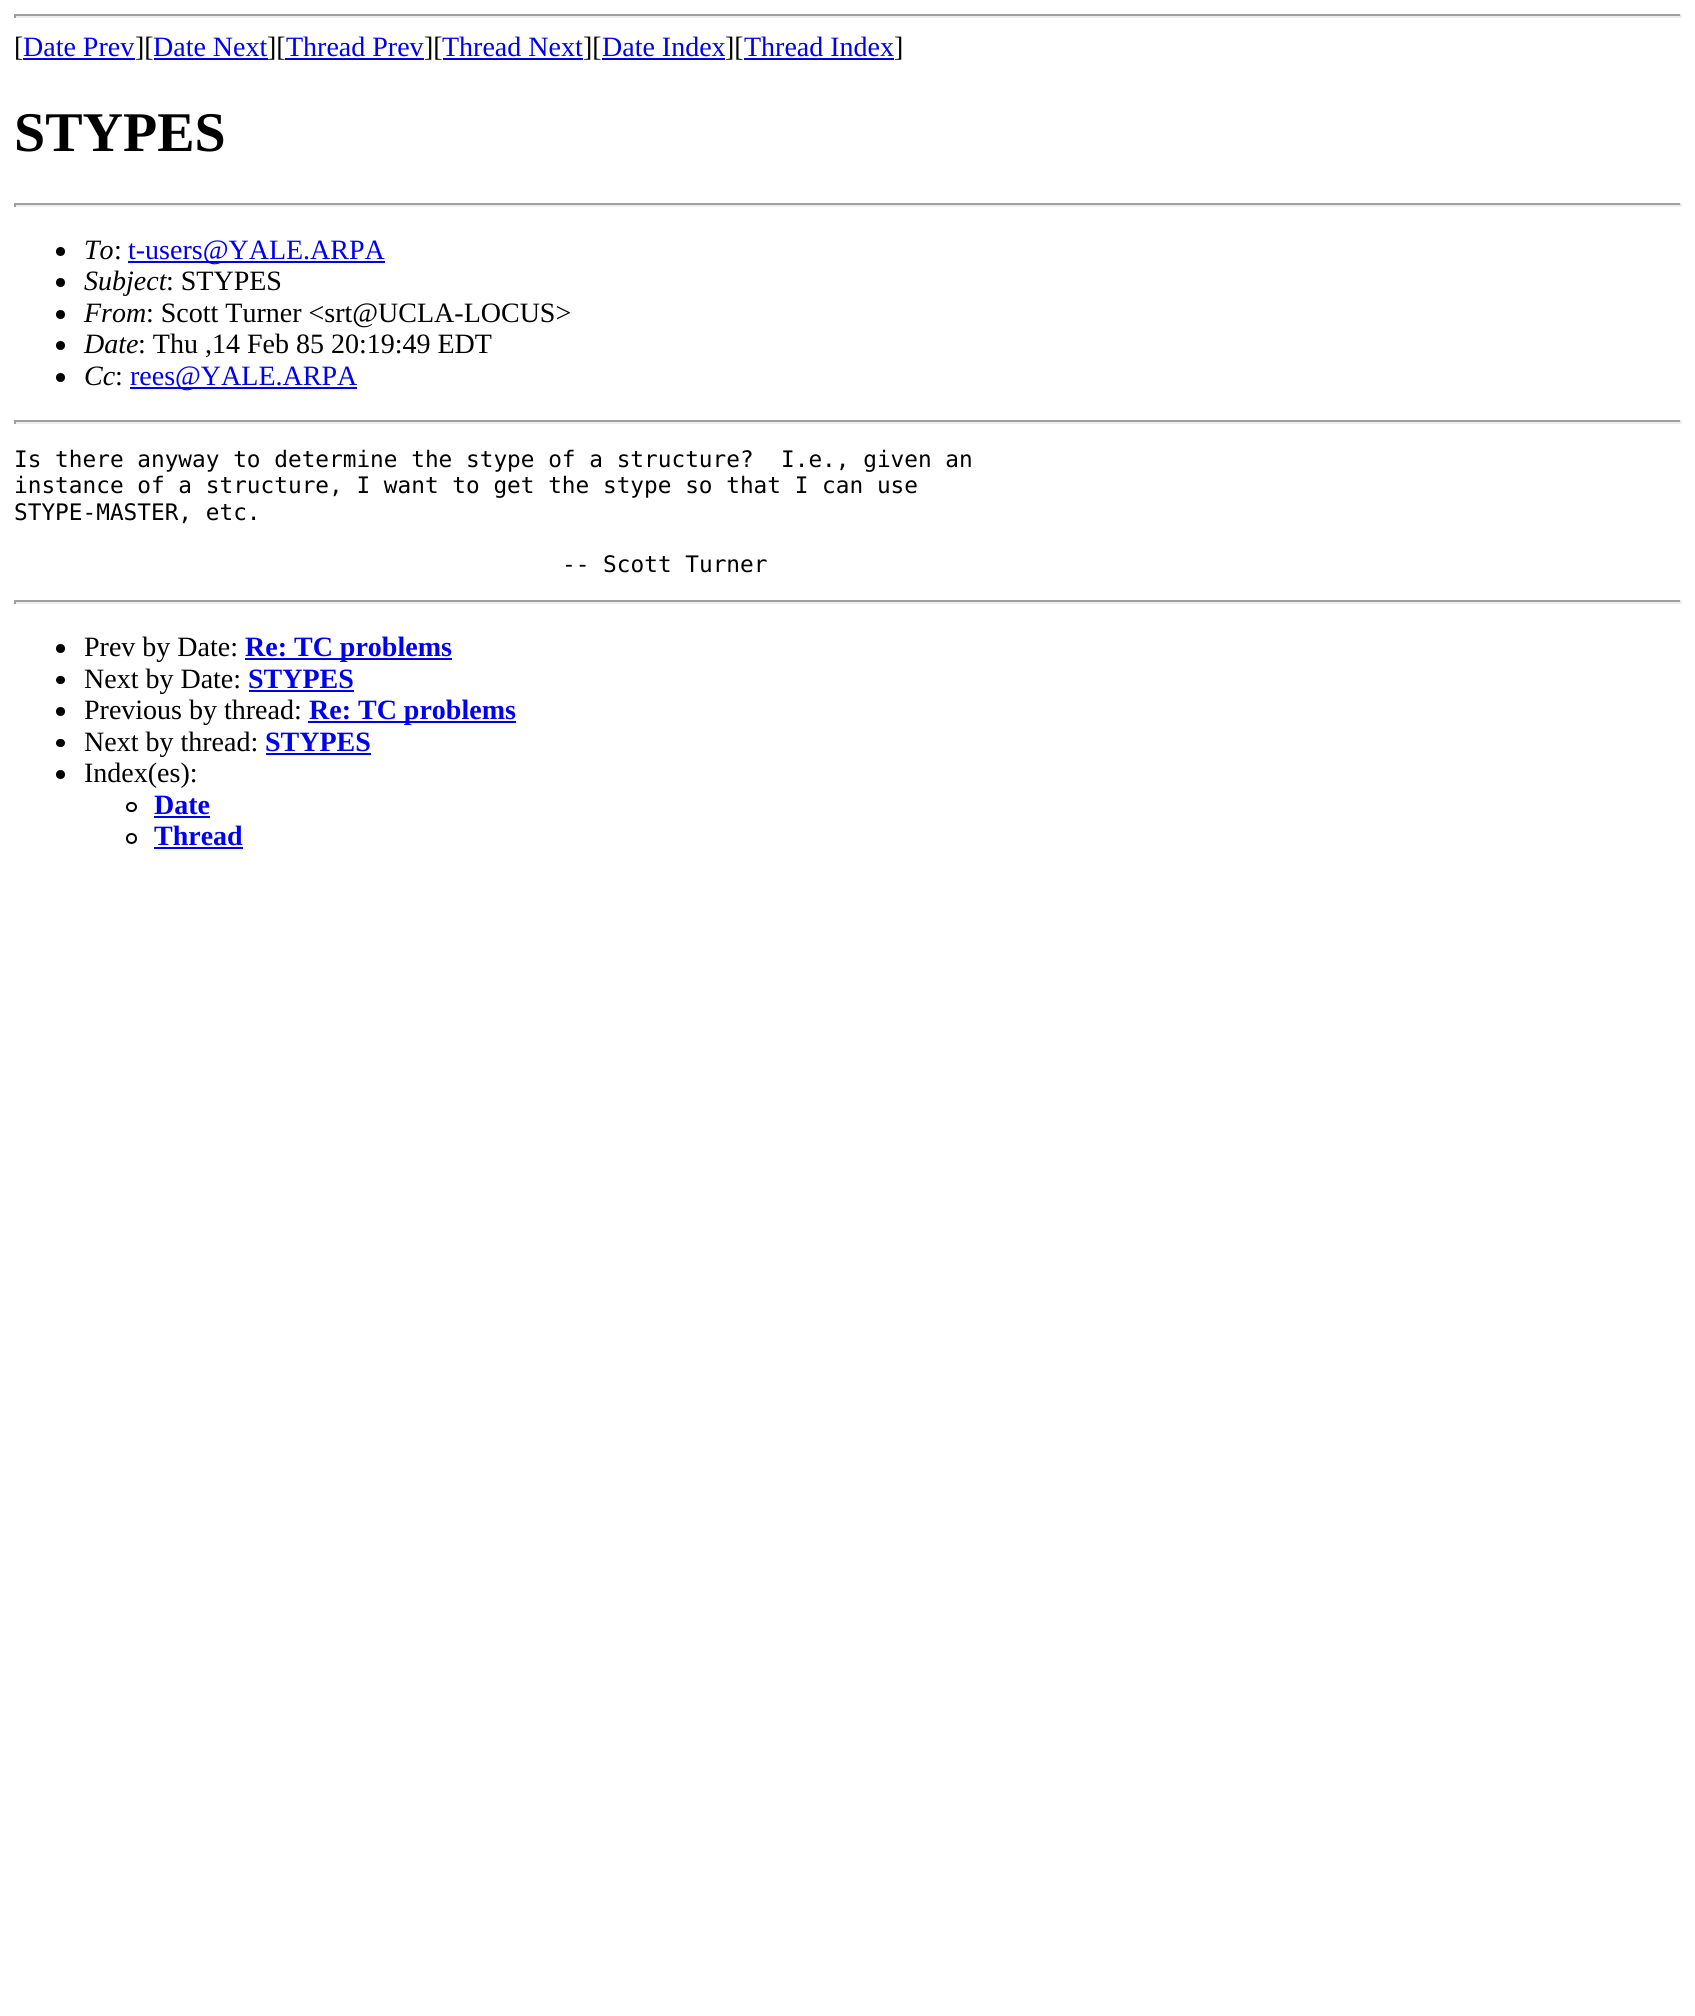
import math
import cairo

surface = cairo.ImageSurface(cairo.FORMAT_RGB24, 1695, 2016)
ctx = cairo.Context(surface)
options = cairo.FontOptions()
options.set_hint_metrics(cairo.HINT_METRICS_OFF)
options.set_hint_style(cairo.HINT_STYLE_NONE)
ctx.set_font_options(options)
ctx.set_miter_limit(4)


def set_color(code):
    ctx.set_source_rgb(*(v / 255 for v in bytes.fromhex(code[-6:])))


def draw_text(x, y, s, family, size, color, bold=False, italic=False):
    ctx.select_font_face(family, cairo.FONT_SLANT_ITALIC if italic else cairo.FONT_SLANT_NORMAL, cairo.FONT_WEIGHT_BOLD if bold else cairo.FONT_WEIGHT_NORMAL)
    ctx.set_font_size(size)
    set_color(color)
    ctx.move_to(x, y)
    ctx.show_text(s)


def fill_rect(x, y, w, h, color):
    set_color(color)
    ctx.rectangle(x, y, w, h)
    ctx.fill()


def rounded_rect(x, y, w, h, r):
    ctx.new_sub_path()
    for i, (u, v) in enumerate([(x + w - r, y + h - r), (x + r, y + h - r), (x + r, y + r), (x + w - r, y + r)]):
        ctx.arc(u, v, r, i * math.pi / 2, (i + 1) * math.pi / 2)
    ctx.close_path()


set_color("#ffffff")
ctx.paint()
fill_rect(14, 14, 1668, 2, "#9f9f9f")
fill_rect(1680, 14, 2, 4, "#eeeeee")
fill_rect(14, 16, 1668, 2, "#eeeeee")
fill_rect(14, 14, 2, 4, "#9f9f9f")
draw_text(14, 56, "[", "Liberation Serif", 28, "#000000")
draw_text(23, 56, "Date Prev", "Liberation Serif", 28, "#0000ee")
fill_rect(23, 58, 112, 2, "#0000ee")
draw_text(135, 56, "][", "Liberation Serif", 28, "#000000")
draw_text(153, 56, "Date Next", "Liberation Serif", 28, "#0000ee")
fill_rect(154, 58, 114, 2, "#0000ee")
draw_text(267, 56, "][", "Liberation Serif", 28, "#000000")
draw_text(286, 56, "Thread Prev", "Liberation Serif", 28, "#0000ee")
fill_rect(285, 58, 139, 2, "#0000ee")
draw_text(424, 56, "][", "Liberation Serif", 28, "#000000")
draw_text(442, 56, "Thread Next", "Liberation Serif", 28, "#0000ee")
fill_rect(443, 58, 140, 2, "#0000ee")
draw_text(583, 56, "][", "Liberation Serif", 28, "#000000")
draw_text(602, 56, "Date Index", "Liberation Serif", 28, "#0000ee")
fill_rect(602, 58, 123, 2, "#0000ee")
draw_text(725, 56, "][", "Liberation Serif", 28, "#000000")
draw_text(744, 56, "Thread Index", "Liberation Serif", 28, "#0000ee")
fill_rect(744, 58, 150, 2, "#0000ee")
draw_text(894, 56, "]", "Liberation Serif", 28, "#000000")
draw_text(14, 151, "STYPES", "Liberation Serif", 56, "#000000", bold=True)
fill_rect(14, 203, 1668, 2, "#9f9f9f")
fill_rect(1680, 203, 2, 4, "#eeeeee")
fill_rect(14, 205, 1668, 2, "#eeeeee")
fill_rect(14, 203, 2, 4, "#9f9f9f")
set_color("#000000")
ctx.new_path()
ctx.arc(60.5, 251.5, 4.5, 0, 2 * math.pi)
ctx.fill()
draw_text(84, 259, "To", "Liberation Serif", 28, "#000000", italic=True)
draw_text(114, 259, ":", "Liberation Serif", 28, "#000000")
fill_rect(128, 261, 257, 2, "#0000ee")
draw_text(128, 259, "t-users@YALE.ARPA", "Liberation Serif", 28, "#0000ee")
set_color("#000000")
ctx.new_path()
ctx.arc(60.5, 282.5, 4.5, 0, 2 * math.pi)
ctx.fill()
draw_text(84, 290, "Subject", "Liberation Serif", 28, "#000000", italic=True)
draw_text(166, 290, ": STYPES", "Liberation Serif", 28, "#000000")
ctx.new_path()
ctx.arc(60.5, 314.5, 4.5, 0, 2 * math.pi)
ctx.fill()
draw_text(84, 322, "From", "Liberation Serif", 28, "#000000", italic=True)
draw_text(146, 322, ": Scott Turner <srt@UCLA-LOCUS>", "Liberation Serif", 28, "#000000")
ctx.new_path()
ctx.arc(60.5, 345.5, 4.5, 0, 2 * math.pi)
ctx.fill()
draw_text(84, 353, "Date", "Liberation Serif", 28, "#000000", italic=True)
draw_text(138, 353, ": Thu ,14 Feb 85 20:19:49 EDT", "Liberation Serif", 28, "#000000")
ctx.new_path()
ctx.arc(60.5, 377.5, 4.5, 0, 2 * math.pi)
ctx.fill()
draw_text(84, 385, "Cc", "Liberation Serif", 28, "#000000", italic=True)
draw_text(115, 385, ":", "Liberation Serif", 28, "#000000")
fill_rect(130, 387, 227, 2, "#0000ee")
draw_text(130, 385, "rees@YALE.ARPA", "Liberation Serif", 28, "#0000ee")
fill_rect(14, 420, 1668, 2, "#9f9f9f")
fill_rect(1680, 420, 2, 4, "#eeeeee")
fill_rect(14, 422, 1668, 2, "#eeeeee")
fill_rect(14, 420, 2, 4, "#9f9f9f")
draw_text(14, 467, "Is there anyway to determine the stype of a structure?  I.e., given an", "DejaVu Sans Mono", 22.75, "#000000")
draw_text(14, 493, "instance of a structure, I want to get the stype so that I can use", "DejaVu Sans Mono", 22.75, "#000000")
draw_text(14, 520, "STYPE-MASTER, etc.", "DejaVu Sans Mono", 22.75, "#000000")
draw_text(562, 572, "-- Scott Turner", "DejaVu Sans Mono", 22.75, "#000000")
fill_rect(14, 600, 1668, 2, "#9f9f9f")
fill_rect(1680, 600, 2, 4, "#eeeeee")
fill_rect(14, 602, 1668, 2, "#eeeeee")
fill_rect(14, 600, 2, 4, "#9f9f9f")
set_color("#000000")
ctx.new_path()
ctx.arc(60.5, 648.5, 4.5, 0, 2 * math.pi)
ctx.fill()
draw_text(84, 656, "Prev by Date:", "Liberation Serif", 28, "#000000")
fill_rect(245, 658, 207, 2, "#0000ee")
draw_text(245, 656, "Re: TC problems", "Liberation Serif", 28, "#0000ee", bold=True)
set_color("#000000")
rounded_rect(56, 676, 9, 8, 4)
ctx.fill()
draw_text(84, 688, "Next by Date:", "Liberation Serif", 28, "#000000")
draw_text(248, 688, "STYPES", "Liberation Serif", 28, "#0000ee", bold=True)
fill_rect(249, 690, 105, 2, "#0000ee")
set_color("#000000")
ctx.new_path()
ctx.arc(60.5, 711.5, 4.5, 0, 2 * math.pi)
ctx.fill()
draw_text(84, 719, "Previous by thread:", "Liberation Serif", 28, "#000000")
fill_rect(308, 721, 208, 2, "#0000ee")
draw_text(309, 719, "Re: TC problems", "Liberation Serif", 28, "#0000ee", bold=True)
set_color("#000000")
rounded_rect(56, 739, 9, 8, 4)
ctx.fill()
draw_text(84, 751, "Next by thread:", "Liberation Serif", 28, "#000000")
draw_text(265, 751, "STYPES", "Liberation Serif", 28, "#0000ee", bold=True)
fill_rect(266, 753, 105, 2, "#0000ee")
set_color("#000000")
ctx.new_path()
ctx.arc(60.5, 774.5, 4.5, 0, 2 * math.pi)
ctx.fill()
draw_text(84, 782, "Index(es):", "Liberation Serif", 28, "#000000")
rounded_rect(127, 803, 9, 8, 4)
ctx.stroke()
draw_text(154, 814, "Date", "Liberation Serif", 28, "#0000ee", bold=True)
fill_rect(154, 816, 56, 2, "#0000ee")
ctx.new_path()
ctx.arc(131.5, 838.5, 4.5, 0, 2 * math.pi)
set_color("#000000")
ctx.stroke()
draw_text(154, 845, "Thread", "Liberation Serif", 28, "#0000ee", bold=True)
fill_rect(154, 847, 89, 2, "#0000ee")
surface.write_to_png("output.png")
